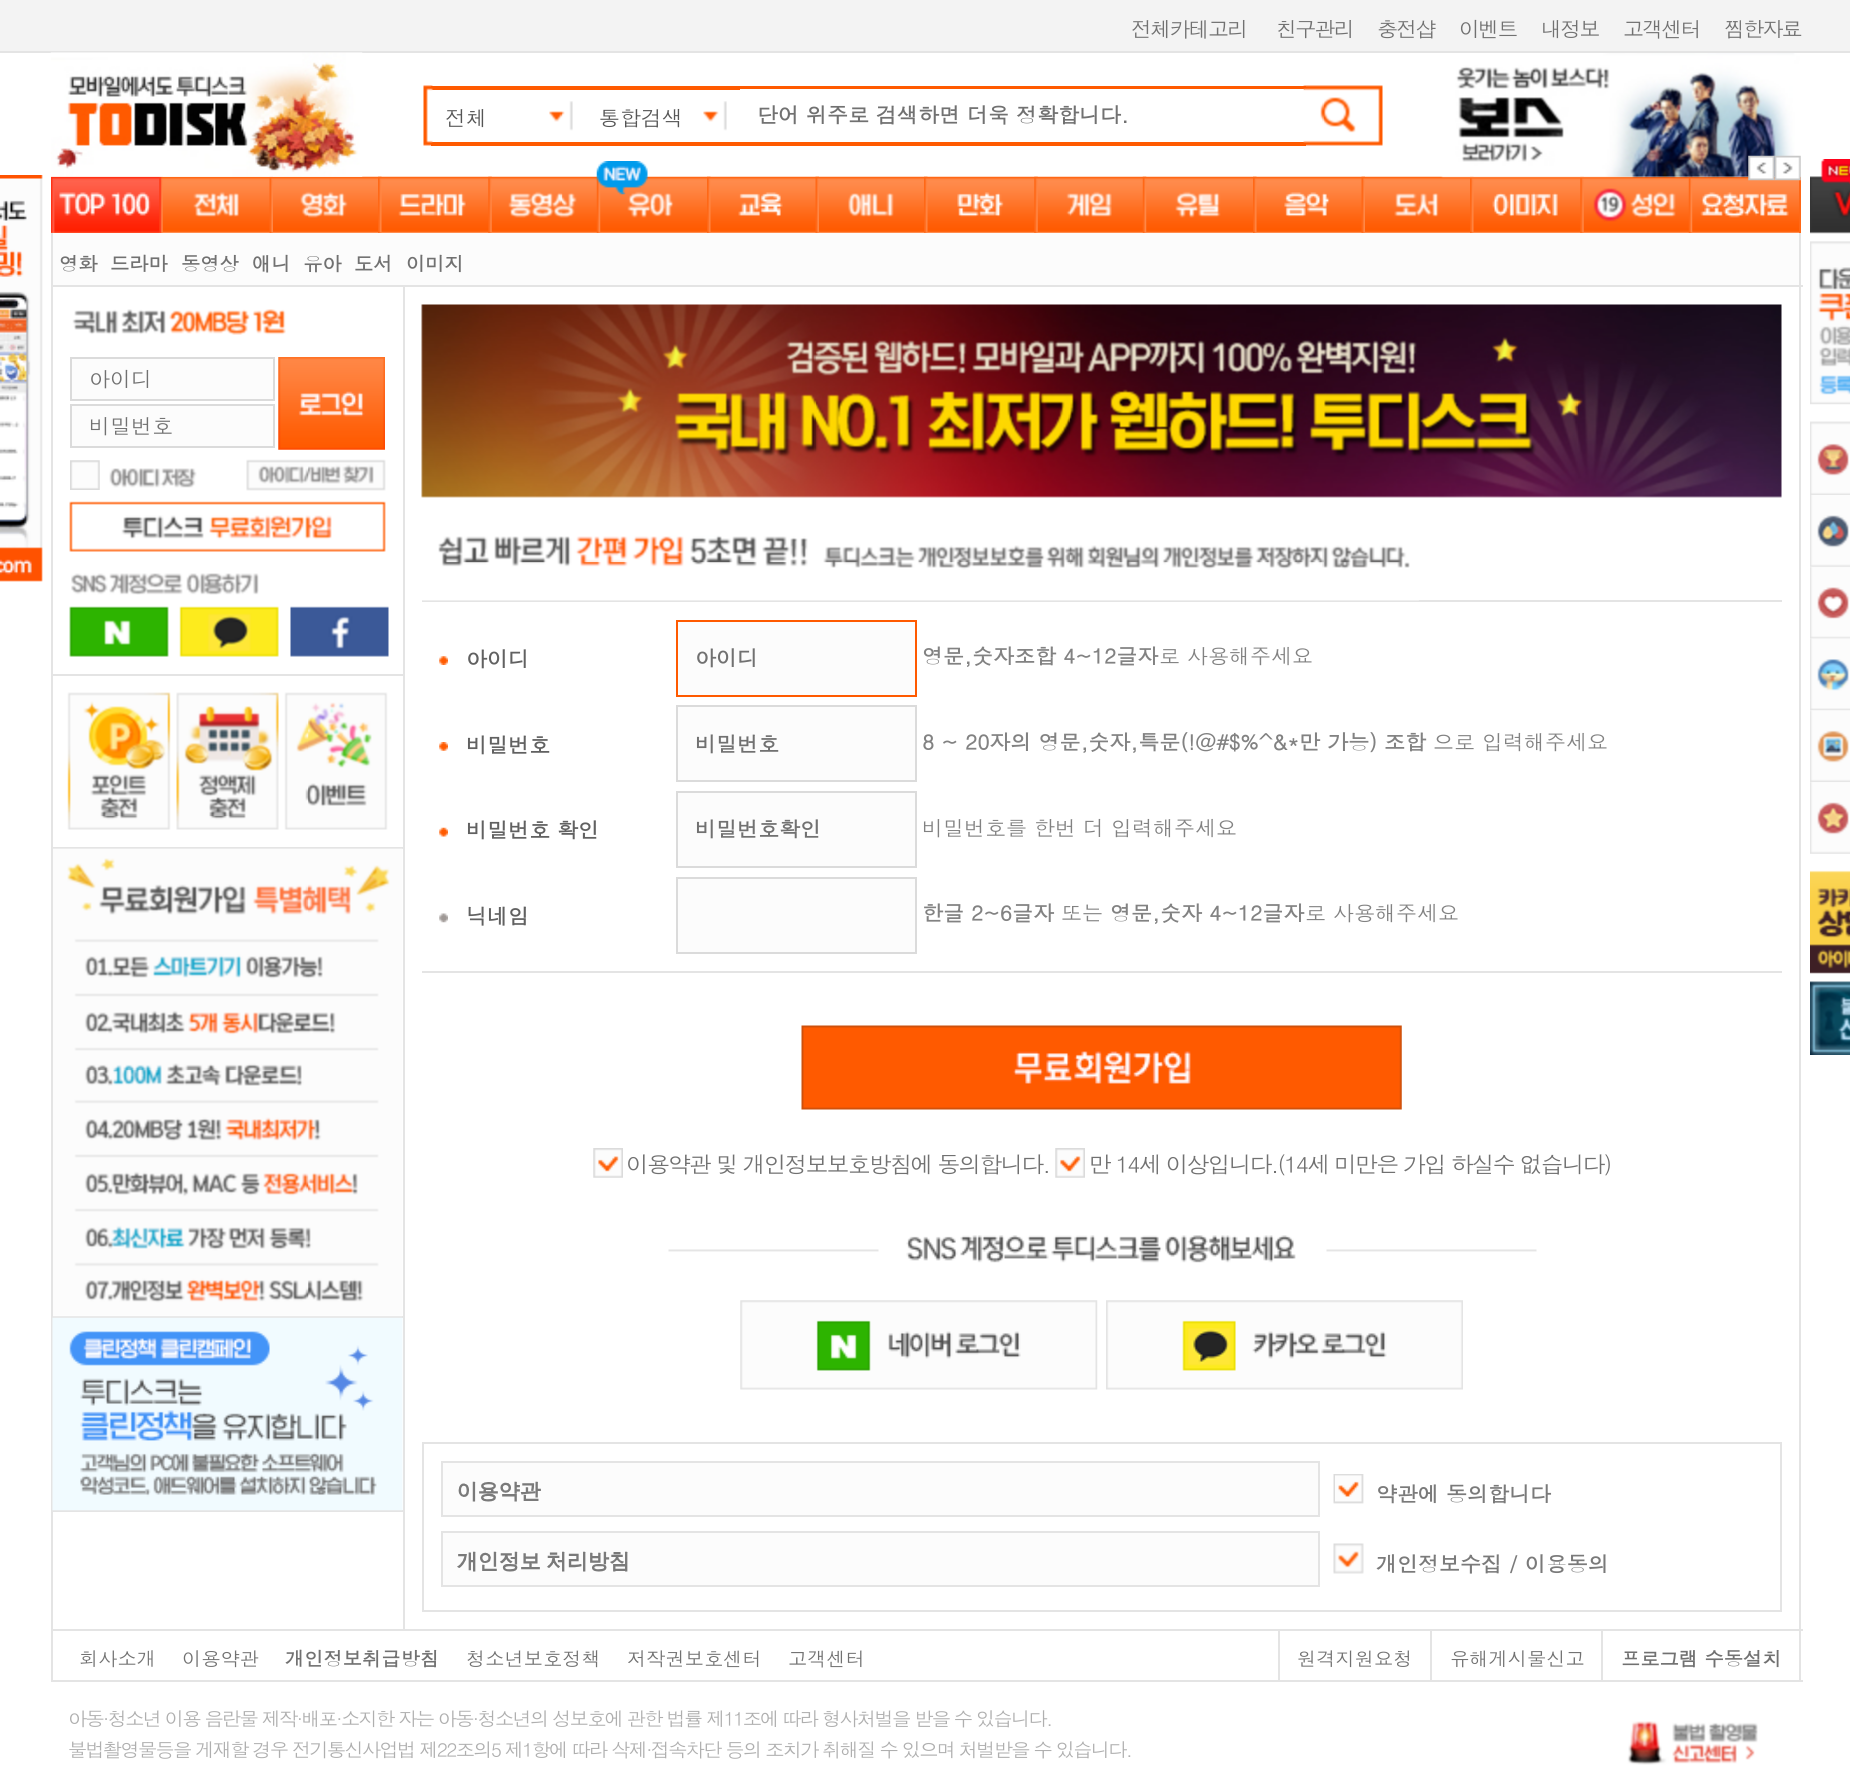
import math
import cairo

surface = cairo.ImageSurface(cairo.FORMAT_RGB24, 1850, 1781)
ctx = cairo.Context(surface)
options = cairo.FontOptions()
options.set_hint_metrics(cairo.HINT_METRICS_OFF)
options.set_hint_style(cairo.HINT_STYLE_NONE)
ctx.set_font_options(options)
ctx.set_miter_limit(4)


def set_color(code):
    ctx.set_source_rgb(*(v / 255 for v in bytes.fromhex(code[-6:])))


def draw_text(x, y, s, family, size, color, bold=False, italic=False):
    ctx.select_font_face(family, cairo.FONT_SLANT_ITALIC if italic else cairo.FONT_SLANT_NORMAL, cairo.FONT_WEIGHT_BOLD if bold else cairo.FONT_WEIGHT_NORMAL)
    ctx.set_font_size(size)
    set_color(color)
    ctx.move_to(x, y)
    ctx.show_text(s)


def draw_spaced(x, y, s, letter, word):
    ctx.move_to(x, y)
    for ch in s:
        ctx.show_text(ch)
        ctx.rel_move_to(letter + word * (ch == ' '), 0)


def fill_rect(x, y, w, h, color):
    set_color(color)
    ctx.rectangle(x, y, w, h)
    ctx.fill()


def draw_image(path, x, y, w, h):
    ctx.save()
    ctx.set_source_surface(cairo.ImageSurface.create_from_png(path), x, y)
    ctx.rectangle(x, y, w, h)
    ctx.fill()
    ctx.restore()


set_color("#ffffff")
ctx.paint()
fill_rect(0, 0, 1850, 51, "#f3f3f3")
fill_rect(0, 51, 1850, 2, "#e4e4e4")
ctx.select_font_face("Dotum")
ctx.set_font_size(21)
set_color("#717171")
draw_spaced(1131, 37, "전체카테고리", -1.75, 0)
draw_spaced(1276, 37, "친구관리", -1.75, 0)
draw_spaced(1377, 37, "충전샵", -1.75, 0)
draw_spaced(1459, 37, "이벤트", -1.75, 0)
draw_spaced(1541, 37, "내정보", -1.75, 0)
draw_spaced(1623, 37, "고객센터", -1.75, 0)
draw_spaced(1724, 37, "찜한자료", -1.75, 0)
draw_image("assets/img9.png", 51, 176, 1750, 57)
draw_image("assets/img10.png", 51, 176, 109, 57)
draw_image("assets/img12.png", 159, 176, 4, 57)
draw_image("assets/img14.png", 269, 176, 4, 57)
draw_image("assets/img1.png", 50, 52, 313, 125)
fill_rect(431, 86, 875, 4, "#ff5a00")
fill_rect(431, 142, 875, 4, "#ff5a00")
draw_image("assets/img2.png", 423, 85, 10, 61)
draw_text(445, 126, "전체", "Dotum", 21, "#555555")
draw_image("assets/img3.png", 549, 101, 24, 30)
draw_text(599, 126, "통합검색", "Dotum", 21, "#555555")
draw_image("assets/img4.png", 703, 101, 24, 30)
fill_rect(740, 89, 564, 1, "#ffffff")
draw_text(757, 123, "단어 위주로 검색하면 더욱 정확합니다.", "Dotum", 21, "#717171", bold=True)
draw_image("assets/img5.png", 1303, 85, 80, 61)
fill_rect(1799, 177, 2, 56, "#ff6816")
draw_image("assets/img16.png", 1470, 176, 4, 57)
draw_image("assets/img18.png", 1580, 176, 4, 57)
draw_image("assets/img20.png", 1688, 176, 5, 57)
draw_image("assets/img6.png", 1441, 53, 360, 125)
draw_image("assets/img7.png", 1748, 155, 27, 26)
draw_image("assets/img8.png", 1774, 155, 27, 26)
draw_image("assets/img11.png", 59, 192, 92, 24)
draw_image("assets/img13.png", 193, 191, 46, 26)
draw_image("assets/img15.png", 300, 191, 48, 27)
draw_image("assets/img16.png", 378, 176, 4, 57)
draw_image("assets/img17.png", 398, 192, 68, 25)
draw_image("assets/img18.png", 488, 176, 4, 57)
draw_image("assets/img19.png", 508, 191, 69, 27)
draw_image("assets/img20.png", 596, 176, 5, 57)
draw_image("assets/img22.png", 627, 191, 47, 27)
draw_image("assets/img21.png", 596, 161, 52, 34)
draw_image("assets/img16.png", 707, 176, 4, 57)
draw_image("assets/img23.png", 738, 192, 45, 25)
draw_image("assets/img14.png", 815, 176, 4, 57)
draw_image("assets/img24.png", 848, 193, 46, 24)
draw_image("assets/img16.png", 924, 176, 4, 57)
draw_image("assets/img25.png", 957, 192, 47, 25)
draw_image("assets/img18.png", 1034, 176, 4, 57)
draw_image("assets/img26.png", 1066, 191, 46, 26)
draw_image("assets/img20.png", 1142, 176, 5, 57)
draw_image("assets/img27.png", 1175, 191, 46, 27)
draw_image("assets/img16.png", 1253, 176, 4, 57)
draw_image("assets/img28.png", 1284, 192, 46, 25)
draw_image("assets/img14.png", 1361, 176, 4, 57)
draw_image("assets/img29.png", 1394, 193, 45, 24)
draw_image("assets/img30.png", 1492, 192, 66, 25)
draw_image("assets/img31.png", 1593, 188, 83, 34)
draw_image("assets/img32.png", 1700, 192, 89, 26)
fill_rect(53, 233, 1746, 52, "#fcfcfc")
fill_rect(51, 285, 1752, 2, "#e4e4e4")
fill_rect(1799, 233, 2, 52, "#e4e4e4")
fill_rect(51, 233, 2, 52, "#e4e4e4")
draw_text(59, 271, "영화", "Dotum", 19.25, "#717171", bold=True)
draw_text(110, 271, "드라마", "Dotum", 19.25, "#717171", bold=True)
draw_text(181, 271, "동영상", "Dotum", 19.25, "#717171", bold=True)
draw_text(252, 271, "애니", "Dotum", 19.25, "#717171", bold=True)
draw_text(303, 271, "유아", "Dotum", 19.25, "#717171", bold=True)
draw_text(354, 271, "도서", "Dotum", 19.25, "#717171", bold=True)
draw_text(406, 271, "이미지", "Dotum", 19.25, "#717171", bold=True)
fill_rect(1799, 287, 2, 1342, "#e4e4e4")
fill_rect(51, 287, 2, 1342, "#e4e4e4")
fill_rect(53, 674, 350, 2, "#e4e4e4")
draw_image("assets/img33.png", 72, 309, 214, 26)
set_color("#fcfcfc")
ctx.rectangle(71, 358, 203, 42)
ctx.fill_preserve()
set_color("#dbdbdb")
ctx.stroke()
draw_text(89, 387, "아이디", "Dotum", 21, "#717171")
set_color("#fcfcfc")
ctx.rectangle(71, 405, 203, 42)
ctx.fill_preserve()
set_color("#dbdbdb")
ctx.stroke()
draw_text(89, 434, "비밀번호", "Dotum", 21, "#717171")
draw_image("assets/img34.png", 278, 357, 107, 93)
draw_image("assets/img35.png", 70, 460, 30, 30)
draw_image("assets/img36.png", 109, 468, 88, 20)
draw_image("assets/img37.png", 246, 459, 140, 32)
draw_image("assets/img38.png", 69, 501, 317, 51)
draw_image("assets/img39.png", 71, 573, 188, 22)
draw_image("assets/img40.png", 69, 606, 100, 51)
draw_image("assets/img41.png", 179, 606, 100, 51)
draw_image("assets/img42.png", 290, 606, 99, 51)
fill_rect(53, 847, 350, 2, "#e4e4e4")
draw_image("assets/img43.png", 67, 692, 104, 138)
draw_image("assets/img44.png", 176, 692, 103, 138)
draw_image("assets/img45.png", 284, 692, 104, 138)
fill_rect(53, 1316, 351, 2, "#e4e4e4")
draw_image("assets/img46.png", 53, 848, 350, 469)
fill_rect(53, 1510, 351, 2, "#e4e4e4")
draw_image("assets/img47.png", 52, 1317, 351, 194)
fill_rect(403, 287, 2, 1344, "#e4e4e4")
draw_image("assets/img48.png", 421, 304, 1361, 194)
fill_rect(422, 600, 1360, 2, "#e4e4e4")
draw_image("assets/img49.png", 422, 535, 997, 66)
draw_image("assets/img50.png", 439, 656, 9, 9)
draw_text(466, 667, "아이디", "Dotum", 21, "#616161", bold=True)
set_color("#fcfcfc")
ctx.rectangle(677, 621, 239, 75)
ctx.fill_preserve()
set_color("#ff5a00")
ctx.stroke()
draw_text(695, 666, "아이디", "Dotum", 21, "#717171", bold=True)
draw_text(922, 664, "영문,숫자조합 4~12글자", "Dotum", 21, "#828282", bold=True)
draw_text(1159, 664, "로 사용해주세요", "Dotum", 21, "#828282")
draw_image("assets/img51.png", 439, 742, 9, 9)
draw_text(466, 753, "비밀번호", "Dotum", 21, "#616161", bold=True)
set_color("#fcfcfc")
ctx.rectangle(677, 706, 239, 75)
ctx.fill_preserve()
set_color("#dbdbdb")
ctx.stroke()
draw_text(695, 752, "비밀번호", "Dotum", 21, "#717171", bold=True)
draw_text(922, 750, "8 ~ 20자의 영문,숫자,특문(!@#$%^&*만 가능) 조합", "Dotum", 21, "#828282", bold=True)
draw_text(1433, 750, "으로 입력해주세요", "Dotum", 21, "#828282")
draw_image("assets/img52.png", 439, 827, 9, 10)
draw_text(466, 838, "비밀번호 확인", "Dotum", 21, "#616161", bold=True)
set_color("#fcfcfc")
ctx.rectangle(677, 792, 239, 75)
ctx.fill_preserve()
set_color("#dbdbdb")
ctx.stroke()
draw_text(695, 837, "비밀번호확인", "Dotum", 21, "#717171", bold=True)
draw_text(922, 836, "비밀번호를 한번 더 입력해주세요", "Dotum", 21, "#828282")
fill_rect(422, 971, 1360, 2, "#e4e4e4")
draw_image("assets/img53.png", 439, 913, 9, 10)
draw_text(466, 924, "닉네임", "Dotum", 21, "#616161", bold=True)
set_color("#fcfcfc")
ctx.rectangle(677, 878, 239, 75)
ctx.fill_preserve()
set_color("#dbdbdb")
ctx.stroke()
draw_text(922, 921, "한글 2~6글자", "Dotum", 21, "#828282", bold=True)
draw_text(1061, 921, "또는", "Dotum", 21, "#828282")
draw_text(1110, 921, "영문,숫자 4~12글자", "Dotum", 21, "#828282", bold=True)
draw_text(1305, 921, "로 사용해주세요", "Dotum", 21, "#828282")
draw_image("assets/img54.png", 801, 1025, 601, 85)
draw_image("assets/img55.png", 593, 1148, 30, 30)
ctx.set_font_size(22.75)
set_color("#717171")
draw_spaced(626, 1173, "이용약관 및 개인정보보호방침에 동의합니다.", -1.75, 0)
draw_image("assets/img55.png", 1055, 1148, 30, 30)
draw_spaced(1089, 1173, "만 14세 이상입니다.(14세 미만은 가입 하실수 없습니다)", -1.75, 0)
draw_image("assets/img56.png", 668, 1235, 869, 28)
draw_image("assets/img57.png", 740, 1300, 358, 90)
draw_image("assets/img58.png", 1106, 1300, 357, 90)
ctx.rectangle(423, 1443, 1358, 168)
set_color("#e4e4e4")
ctx.stroke()
set_color("#fcfcfc")
ctx.rectangle(442, 1462, 877, 54)
ctx.fill_preserve()
set_color("#e4e4e4")
ctx.stroke()
draw_image("assets/img59.png", 458, 1481, 83, 21)
draw_image("assets/img60.png", 1333, 1474, 31, 30)
draw_text(1376, 1502, "약관에 동의합니다", "Dotum", 21, "#7a7a7a", bold=True)
set_color("#fcfcfc")
ctx.rectangle(442, 1532, 877, 54)
ctx.fill_preserve()
set_color("#e4e4e4")
ctx.stroke()
draw_image("assets/img61.png", 457, 1551, 171, 21)
draw_image("assets/img62.png", 1333, 1543, 31, 31)
draw_text(1376, 1572, "개인정보수집 / 이용동의", "Dotum", 21, "#7a7a7a", bold=True)
fill_rect(51, 1629, 1752, 2, "#e4e4e4")
fill_rect(1278, 1631, 2, 51, "#e4e4e4")
fill_rect(1430, 1631, 2, 51, "#e4e4e4")
fill_rect(1601, 1631, 2, 51, "#e4e4e4")
fill_rect(51, 1680, 1752, 2, "#e4e4e4")
fill_rect(51, 1631, 2, 49, "#e4e4e4")
draw_text(79, 1666, "회사소개", "Dotum", 19.25, "#717171")
draw_text(182, 1666, "이용약관", "Dotum", 19.25, "#717171")
draw_text(285, 1666, "개인정보취급방침", "Dotum", 19.25, "#717171", bold=True)
draw_text(466, 1666, "청소년보호정책", "Dotum", 19.25, "#717171")
draw_text(627, 1666, "저작권보호센터", "Dotum", 19.25, "#717171")
draw_text(788, 1666, "고객센터", "Dotum", 19.25, "#717171")
fill_rect(1799, 1631, 2, 49, "#e4e4e4")
draw_text(1297, 1666, "원격지원요청", "Dotum", 19.25, "#717171")
draw_text(1450, 1666, "유해게시물신고", "Dotum", 19.25, "#717171")
draw_text(1621, 1666, "프로그램 수동설치", "Dotum", 19.25, "#717171", bold=True)
ctx.select_font_face("Dotum")
set_color("#afafaf")
draw_spaced(68, 1726, "아동·청소년 이용 음란물 제작·배포·소지한 자는 아동·청소년의 성보호에 관한 법률 제11조에 따라 형사처벌을 받을 수 있습니다.", -1.75, 0)
draw_spaced(68, 1757, "불법촬영물등을 게재할 경우 전기통신사업법 제22조의5 제1항에 따라 삭제·접속차단 등의 조치가 취해질 수 있으며 처벌받을 수 있습니다.", -1.75, 0)
draw_image("assets/img63.png", 1627, 1721, 131, 44)
draw_image("assets/img64.png", 0, 175, 51, 407)
draw_image("assets/img65.png", 1810, 159, 40, 75)
draw_image("assets/img66.png", 1810, 241, 40, 164)
draw_image("assets/img67.png", 1810, 421, 40, 74)
draw_image("assets/img68.png", 1810, 495, 40, 73)
draw_image("assets/img69.png", 1810, 567, 40, 73)
draw_image("assets/img70.png", 1810, 638, 40, 73)
draw_image("assets/img71.png", 1810, 710, 40, 73)
draw_image("assets/img72.png", 1810, 782, 40, 72)
draw_image("assets/img73.png", 1810, 870, 40, 104)
draw_image("assets/img74.png", 1810, 981, 40, 74)
surface.write_to_png("output.png")
